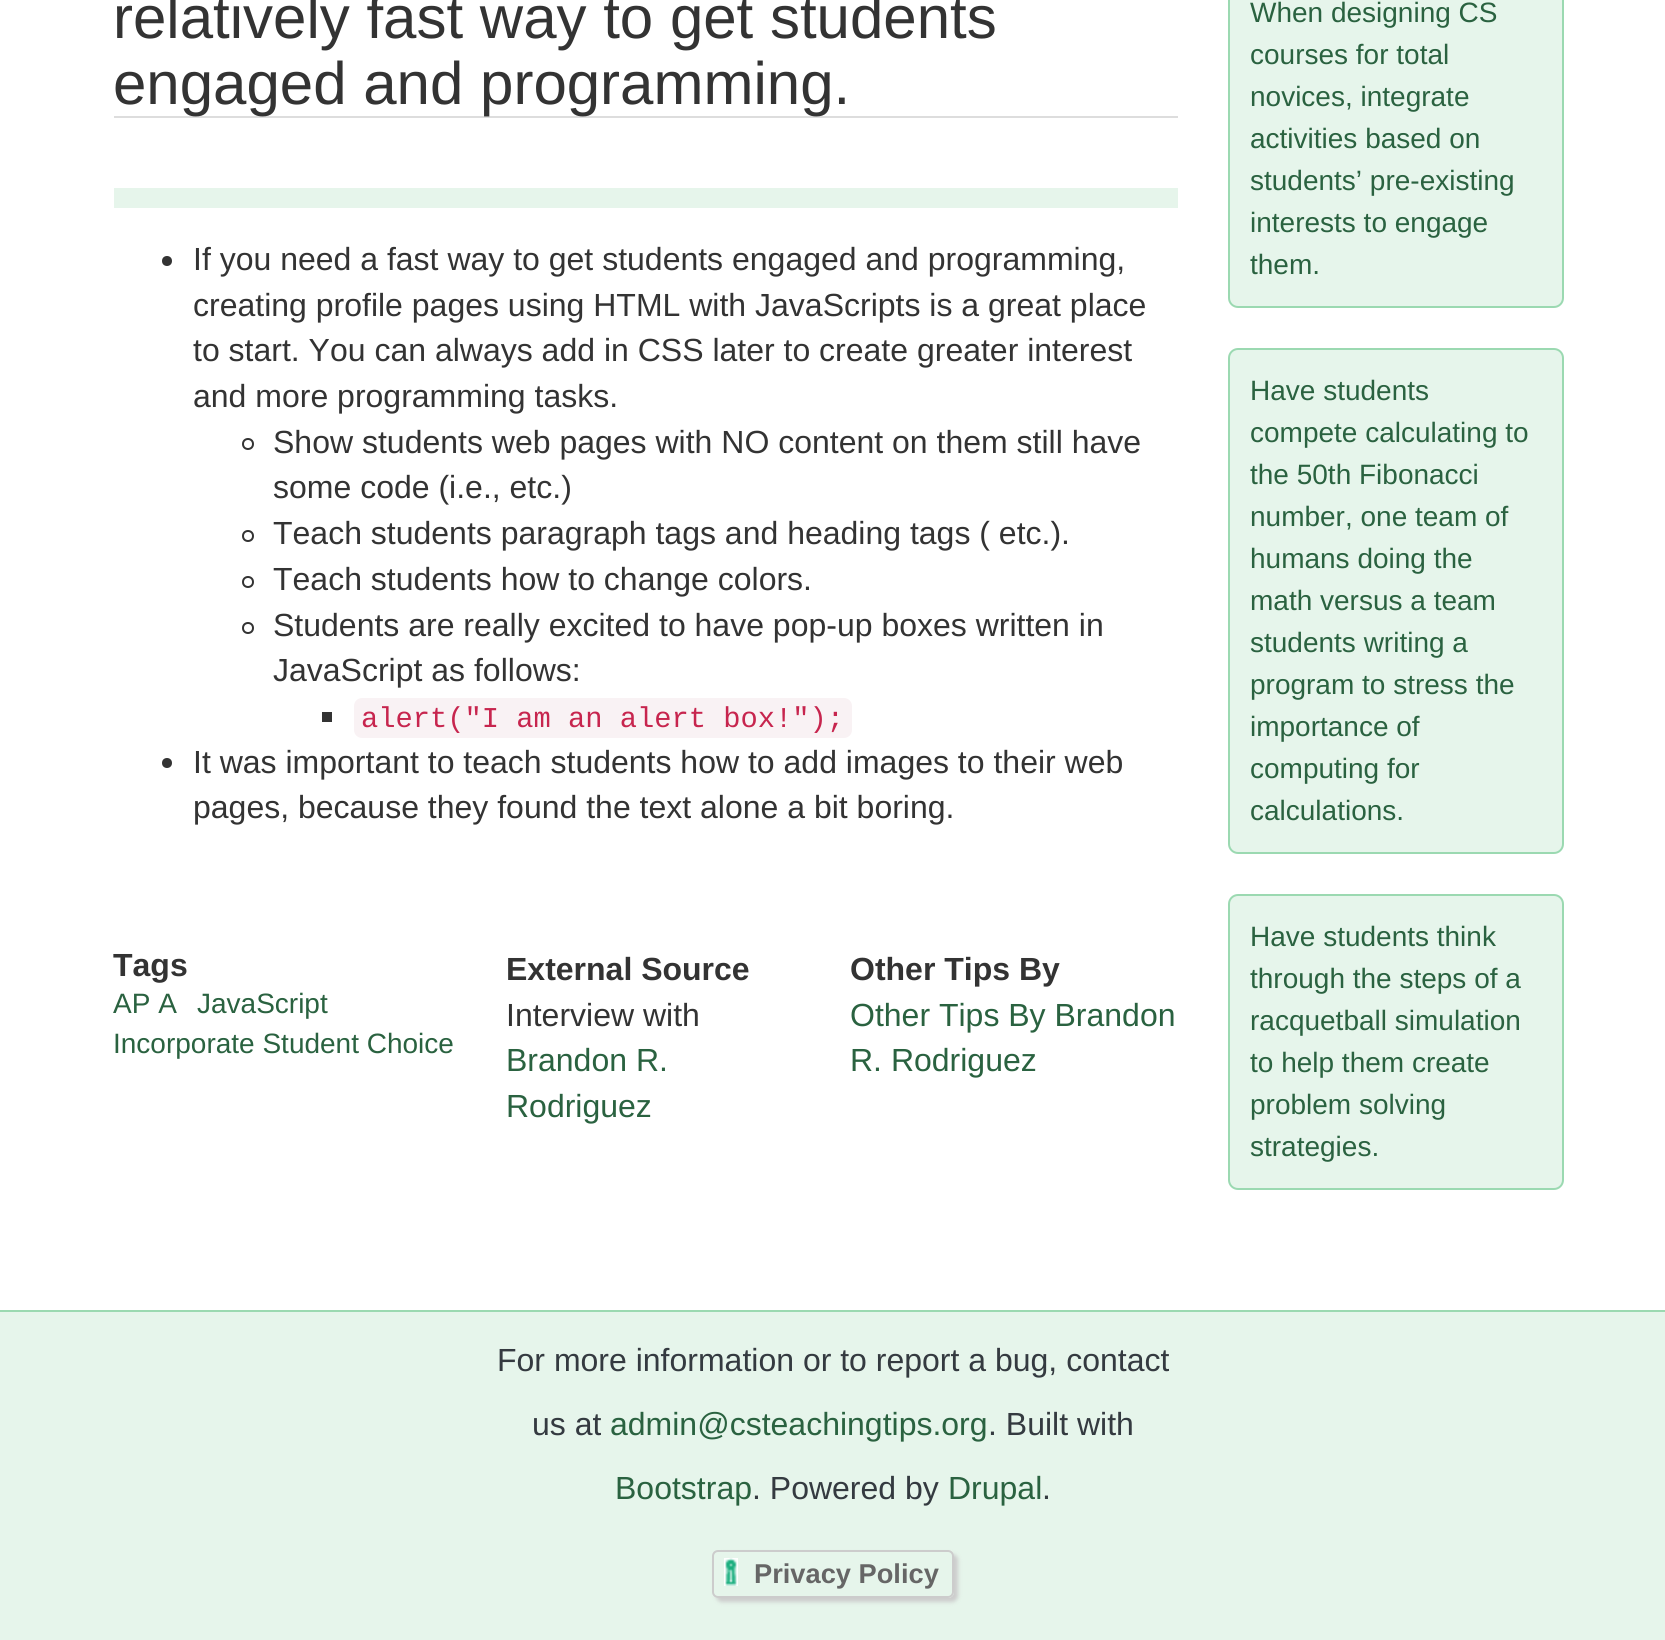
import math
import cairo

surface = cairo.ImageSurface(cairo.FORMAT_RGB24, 1665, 1640)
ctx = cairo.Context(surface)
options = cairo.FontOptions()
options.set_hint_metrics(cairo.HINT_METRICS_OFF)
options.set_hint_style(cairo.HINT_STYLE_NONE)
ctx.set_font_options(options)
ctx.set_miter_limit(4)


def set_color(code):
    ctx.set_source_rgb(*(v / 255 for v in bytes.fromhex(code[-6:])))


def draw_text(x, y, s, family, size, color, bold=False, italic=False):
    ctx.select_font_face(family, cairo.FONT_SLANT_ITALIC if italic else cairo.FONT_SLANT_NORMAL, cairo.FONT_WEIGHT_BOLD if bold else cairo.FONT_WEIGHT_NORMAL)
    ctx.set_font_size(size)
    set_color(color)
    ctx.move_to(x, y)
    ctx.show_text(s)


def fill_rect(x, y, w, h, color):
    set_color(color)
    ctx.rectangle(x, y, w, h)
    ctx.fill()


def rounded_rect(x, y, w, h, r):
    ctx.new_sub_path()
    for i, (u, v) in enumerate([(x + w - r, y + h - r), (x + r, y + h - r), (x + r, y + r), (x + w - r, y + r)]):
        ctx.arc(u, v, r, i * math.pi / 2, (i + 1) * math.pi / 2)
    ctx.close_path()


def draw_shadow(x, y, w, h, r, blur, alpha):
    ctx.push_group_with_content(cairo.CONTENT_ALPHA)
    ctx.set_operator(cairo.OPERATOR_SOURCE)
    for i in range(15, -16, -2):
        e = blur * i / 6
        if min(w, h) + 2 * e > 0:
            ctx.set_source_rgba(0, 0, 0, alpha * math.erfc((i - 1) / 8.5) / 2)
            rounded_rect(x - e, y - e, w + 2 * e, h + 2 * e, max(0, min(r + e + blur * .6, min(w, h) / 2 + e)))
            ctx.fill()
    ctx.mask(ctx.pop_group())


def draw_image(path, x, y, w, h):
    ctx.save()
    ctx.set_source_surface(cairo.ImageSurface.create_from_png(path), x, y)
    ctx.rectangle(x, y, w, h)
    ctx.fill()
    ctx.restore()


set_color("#e6f5eb")
ctx.paint()
fill_rect(0, 0, 1665, 1310, "#ffffff")
fill_rect(114, 116, 1064, 2, "#dddddd")
draw_text(113, 38, "relatively fast way to get students", "Liberation Sans", 60, "#333333")
draw_text(113, 104, "engaged and programming.", "Liberation Sans", 60, "#333333")
fill_rect(114, 188, 1064, 20, "#e6f5eb")
set_color("#333333")
ctx.new_path()
ctx.arc(167, 261, 5, 0, 2 * math.pi)
ctx.fill()
draw_text(193, 270, "If you need a fast way to get students engaged and programming,", "Liberation Sans", 32, "#333333")
draw_text(193, 316, "creating profile pages using HTML with JavaScripts is a great place", "Liberation Sans", 32, "#333333")
draw_text(193, 361, "to start. You can always add in CSS later to create greater interest", "Liberation Sans", 32, "#333333")
draw_text(193, 407, "and more programming tasks.", "Liberation Sans", 32, "#333333")
ctx.new_path()
ctx.arc(248, 444, 5, 0, 2 * math.pi)
ctx.stroke()
draw_text(273, 453, "Show students web pages with NO content on them still have", "Liberation Sans", 32, "#333333")
draw_text(273, 498, "some code (i.e., etc.)", "Liberation Sans", 32, "#333333")
ctx.new_path()
ctx.arc(248, 536, 5, 0, 2 * math.pi)
ctx.stroke()
draw_text(273, 544, "Teach students paragraph tags and heading tags ( etc.).", "Liberation Sans", 32, "#333333")
ctx.new_path()
ctx.arc(248, 582, 5, 0, 2 * math.pi)
ctx.stroke()
draw_text(273, 590, "Teach students how to change colors.", "Liberation Sans", 32, "#333333")
ctx.new_path()
ctx.arc(248, 628, 5, 0, 2 * math.pi)
ctx.stroke()
draw_text(273, 636, "Students are really excited to have pop-up boxes written in", "Liberation Sans", 32, "#333333")
draw_text(273, 681, "JavaScript as follows:", "Liberation Sans", 32, "#333333")
fill_rect(322, 712, 10, 10, "#333333")
set_color("#f9f2f4")
rounded_rect(354, 698, 498, 40, 8)
ctx.fill()
draw_text(361, 727, "alert(\"I am an alert box!\");", "Liberation Mono", 28.75, "#c7254e")
set_color("#333333")
ctx.new_path()
ctx.arc(167, 763, 5, 0, 2 * math.pi)
ctx.fill()
draw_text(193, 773, "It was important to teach students how to add images to their web", "Liberation Sans", 32, "#333333")
draw_text(193, 818, "pages, because they found the text alone a bit boring.", "Liberation Sans", 32, "#333333")
draw_text(113, 976, "Tags", "Liberation Sans", 32, "#333333", bold=True)
draw_text(113, 1013, "AP A", "Liberation Sans", 28, "#2a6240")
draw_text(197, 1013, "JavaScript", "Liberation Sans", 28, "#2a6240")
draw_text(113, 1053, "Incorporate Student Choice", "Liberation Sans", 28, "#2a6240")
draw_text(506, 980, "External Source", "Liberation Sans", 32, "#333333", bold=True)
draw_text(506, 1026, "Interview with", "Liberation Sans", 32, "#333333")
draw_text(506, 1071, "Brandon R.", "Liberation Sans", 32, "#2a6240")
draw_text(506, 1117, "Rodriguez", "Liberation Sans", 32, "#2a6240")
draw_text(850, 980, "Other Tips By", "Liberation Sans", 32, "#333333", bold=True)
draw_text(850, 1026, "Other Tips By Brandon", "Liberation Sans", 32, "#2a6240")
draw_text(850, 1071, "R. Rodriguez", "Liberation Sans", 32, "#2a6240")
set_color("#e6f5eb")
rounded_rect(1229, -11, 334, 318, 9)
ctx.fill_preserve()
set_color("#9bd9b1")
ctx.stroke()
draw_text(1250, 22, "When designing CS", "Liberation Sans", 28, "#2a6240")
draw_text(1250, 64, "courses for total", "Liberation Sans", 28, "#2a6240")
draw_text(1250, 106, "novices, integrate", "Liberation Sans", 28, "#2a6240")
draw_text(1250, 148, "activities based on", "Liberation Sans", 28, "#2a6240")
draw_text(1250, 190, "students’ pre-existing", "Liberation Sans", 28, "#2a6240")
draw_text(1250, 232, "interests to engage", "Liberation Sans", 28, "#2a6240")
draw_text(1250, 274, "them.", "Liberation Sans", 28, "#2a6240")
set_color("#e6f5eb")
rounded_rect(1229, 349, 334, 504, 9)
ctx.fill_preserve()
set_color("#9bd9b1")
ctx.stroke()
draw_text(1250, 400, "Have students", "Liberation Sans", 28, "#2a6240")
draw_text(1250, 442, "compete calculating to", "Liberation Sans", 28, "#2a6240")
draw_text(1250, 484, "the 50th Fibonacci", "Liberation Sans", 28, "#2a6240")
draw_text(1250, 526, "number, one team of", "Liberation Sans", 28, "#2a6240")
draw_text(1250, 568, "humans doing the", "Liberation Sans", 28, "#2a6240")
draw_text(1250, 610, "math versus a team", "Liberation Sans", 28, "#2a6240")
draw_text(1250, 652, "students writing a", "Liberation Sans", 28, "#2a6240")
draw_text(1250, 694, "program to stress the", "Liberation Sans", 28, "#2a6240")
draw_text(1250, 736, "importance of", "Liberation Sans", 28, "#2a6240")
draw_text(1250, 778, "computing for", "Liberation Sans", 28, "#2a6240")
draw_text(1250, 820, "calculations.", "Liberation Sans", 28, "#2a6240")
set_color("#e6f5eb")
rounded_rect(1229, 895, 334, 294, 9)
ctx.fill_preserve()
set_color("#9bd9b1")
ctx.stroke()
draw_text(1250, 946, "Have students think", "Liberation Sans", 28, "#2a6240")
draw_text(1250, 988, "through the steps of a", "Liberation Sans", 28, "#2a6240")
draw_text(1250, 1030, "racquetball simulation", "Liberation Sans", 28, "#2a6240")
draw_text(1250, 1072, "to help them create", "Liberation Sans", 28, "#2a6240")
draw_text(1250, 1114, "problem solving", "Liberation Sans", 28, "#2a6240")
draw_text(1250, 1156, "strategies.", "Liberation Sans", 28, "#2a6240")
fill_rect(0, 1310, 1665, 2, "#9bd9b1")
draw_text(497, 1371, "For more information or to report a bug, contact", "Liberation Sans", 32, "#343a40")
draw_text(532, 1435, "us at", "Liberation Sans", 32, "#343a40")
draw_text(610, 1435, "admin@csteachingtips.org", "Liberation Sans", 32, "#2a6240")
draw_text(988, 1435, ". Built with", "Liberation Sans", 32, "#343a40")
draw_text(615, 1499, "Bootstrap", "Liberation Sans", 32, "#2a6240")
draw_text(752, 1499, ". Powered by", "Liberation Sans", 32, "#343a40")
draw_text(948, 1499, "Drupal", "Liberation Sans", 32, "#2a6240")
draw_text(1042, 1499, ".", "Liberation Sans", 32, "#343a40")
ctx.save()
ctx.set_fill_rule(cairo.FILL_RULE_EVEN_ODD)
ctx.new_path()
ctx.move_to(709, 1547)
ctx.line_to(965, 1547)
ctx.line_to(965, 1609)
ctx.line_to(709, 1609)
ctx.close_path()
ctx.move_to(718, 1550)
ctx.line_to(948, 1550)
ctx.curve_to(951.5, 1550, 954, 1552.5, 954, 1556)
ctx.line_to(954, 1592)
ctx.curve_to(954, 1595.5, 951.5, 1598, 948, 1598)
ctx.line_to(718, 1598)
ctx.curve_to(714.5, 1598, 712, 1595.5, 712, 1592)
ctx.line_to(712, 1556)
ctx.curve_to(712, 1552.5, 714.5, 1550, 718, 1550)
ctx.close_path()
ctx.clip()
set_color("#cccccc")
draw_shadow(716, 1554, 242, 48, 6, 2, 1)
ctx.restore()
draw_image("assets/img1.png", 724, 1558, 14, 28)
rounded_rect(713, 1551, 240, 46, 5)
set_color("#cccccc")
ctx.stroke()
draw_text(754, 1583, "Privacy Policy", "Liberation Sans", 27.25, "#666666", bold=True)
surface.write_to_png("output.png")
